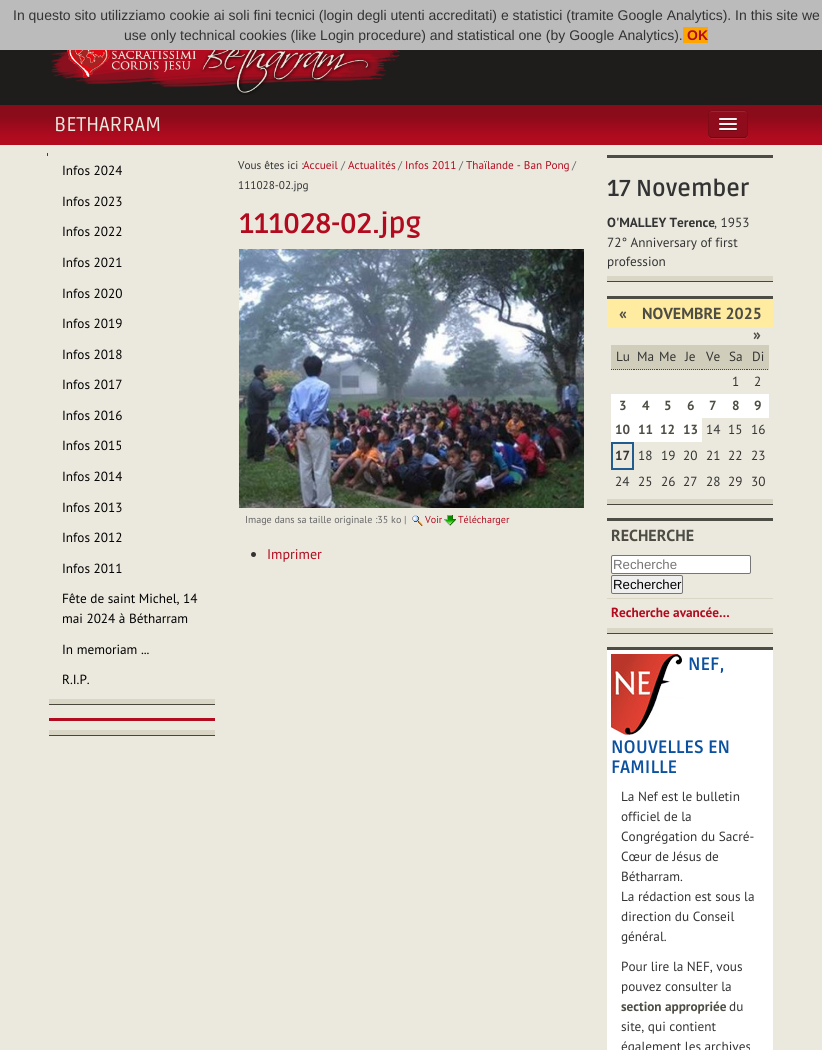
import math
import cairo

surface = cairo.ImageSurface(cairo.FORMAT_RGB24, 822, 1050)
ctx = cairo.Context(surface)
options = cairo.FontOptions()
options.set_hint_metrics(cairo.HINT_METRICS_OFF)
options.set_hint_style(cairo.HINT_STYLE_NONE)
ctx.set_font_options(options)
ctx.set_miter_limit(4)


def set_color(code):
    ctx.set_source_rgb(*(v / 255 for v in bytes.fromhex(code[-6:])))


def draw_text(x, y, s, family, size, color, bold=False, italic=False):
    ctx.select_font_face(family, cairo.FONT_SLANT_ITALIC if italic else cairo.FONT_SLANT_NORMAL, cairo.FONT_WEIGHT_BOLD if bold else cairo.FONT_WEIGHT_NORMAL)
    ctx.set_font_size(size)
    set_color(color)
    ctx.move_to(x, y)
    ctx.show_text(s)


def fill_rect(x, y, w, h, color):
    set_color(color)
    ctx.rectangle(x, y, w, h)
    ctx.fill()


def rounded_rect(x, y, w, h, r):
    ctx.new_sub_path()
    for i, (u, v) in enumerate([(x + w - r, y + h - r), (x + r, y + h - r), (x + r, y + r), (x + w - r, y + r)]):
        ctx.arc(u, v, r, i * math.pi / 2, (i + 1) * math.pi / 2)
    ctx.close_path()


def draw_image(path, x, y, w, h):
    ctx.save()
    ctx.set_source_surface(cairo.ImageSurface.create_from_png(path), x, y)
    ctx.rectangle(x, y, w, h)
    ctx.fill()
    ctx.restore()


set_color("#ebe9de")
ctx.paint()
fill_rect(0, 0, 822, 50, "#bbbbbb")
draw_text(13, 20, "In questo sito utilizziamo cookie ai soli fini tecnici (login degli utenti accreditati) e statistici (tramite Google Analytics). In this site we", "Liberation Sans", 14, "#333333")
draw_text(124, 40, "use only technical cookies (like Login procedure) and statistical one (by Google Analytics).", "Liberation Sans", 14, "#333333")
fill_rect(683, 27, 25, 16, "#ffa500")
draw_text(687, 40, "OK", "Liberation Sans", 14, "#b20b1f", bold=True)
fill_rect(0, 50, 822, 55, "#1f1d1c")
draw_image("assets/img1.png", 51, 50, 349, 45)
gradient = cairo.LinearGradient(0, 145, 0, 105)
gradient.add_color_stop_rgba(0.17, 0.698, 0.043, 0.122, 1)
gradient.add_color_stop_rgba(0.73, 0.541, 0.043, 0.102, 1)
ctx.set_source(gradient)
ctx.rectangle(0, 105, 822, 40)
ctx.fill()
draw_text(54, 131, "BETHARRAM", "Ruda", 20, "#ebe9de")
set_color("#b81d30")
ctx.new_path()
ctx.move_to(708, 134)
ctx.curve_to(708, 140, 713, 139, 717, 139)
ctx.line_to(739, 139)
ctx.curve_to(743, 139, 748, 140, 748, 134)
ctx.curve_to(748, 136, 746, 138, 744, 138)
ctx.line_to(712, 138)
ctx.curve_to(710, 138, 708, 136, 708, 134)
ctx.close_path()
ctx.fill()
set_color("#8e0c1b")
rounded_rect(708, 110, 40, 28, 4)
ctx.fill()
set_color("#992432")
ctx.new_path()
ctx.move_to(712, 112)
ctx.line_to(744, 112)
ctx.curve_to(746, 112, 747, 113, 747, 115)
ctx.curve_to(747, 110, 743, 111, 738.5, 111)
ctx.line_to(717.5, 111)
ctx.curve_to(713, 111, 709, 110, 709, 115)
ctx.curve_to(709, 113, 710, 112, 712, 112)
ctx.close_path()
ctx.fill()
ctx.new_path()
ctx.move_to(746.5, 136.5)
ctx.curve_to(746, 137, 745, 137.5, 744, 137.5)
ctx.line_to(712, 137.5)
ctx.curve_to(711, 137.5, 710, 137, 709.5, 136.5)
ctx.set_source_rgba(0, 0, 0, 0.25)
ctx.set_line_width(1)
ctx.stroke()
ctx.new_path()
ctx.move_to(709.5, 136.5)
ctx.curve_to(709, 136, 708.5, 135, 708.5, 134)
ctx.line_to(708.5, 114)
ctx.curve_to(708.5, 113, 709, 112, 709.5, 111.5)
ctx.curve_to(710, 111, 711, 110.5, 712, 110.5)
ctx.line_to(744, 110.5)
ctx.curve_to(745, 110.5, 746, 111, 746.5, 111.5)
ctx.curve_to(747, 112, 747.5, 113, 747.5, 114)
ctx.line_to(747.5, 134)
ctx.curve_to(747.5, 135, 747, 136, 746.5, 136.5)
ctx.set_source_rgba(0, 0, 0, 0.1)
ctx.stroke()
set_color("#6b0914")
ctx.new_path()
ctx.move_to(719, 119.5)
ctx.curve_to(718, 121.5, 722.5, 121, 722.5, 121)
ctx.line_to(733.5, 121)
ctx.curve_to(733.5, 121, 738, 121.5, 737, 119.5)
ctx.curve_to(736, 120.5, 729.5, 120, 728, 120)
ctx.curve_to(726.5, 120, 720, 120.5, 719, 119.5)
ctx.close_path()
ctx.fill()
set_color("#f5f5f5")
rounded_rect(719, 118, 18, 2, 1)
ctx.fill()
set_color("#6b0914")
ctx.new_path()
ctx.move_to(719, 124.5)
ctx.curve_to(718, 126.5, 722.5, 126, 722.5, 126)
ctx.line_to(733.5, 126)
ctx.curve_to(733.5, 126, 738, 126.5, 737, 124.5)
ctx.curve_to(736, 125.5, 729.5, 125, 728, 125)
ctx.curve_to(726.5, 125, 720, 125.5, 719, 124.5)
ctx.close_path()
ctx.fill()
set_color("#f5f5f5")
rounded_rect(719, 123, 18, 2, 1)
ctx.fill()
set_color("#6b0914")
ctx.new_path()
ctx.move_to(719, 129.5)
ctx.curve_to(718, 131.5, 722.5, 131, 722.5, 131)
ctx.line_to(733.5, 131)
ctx.curve_to(733.5, 131, 738, 131.5, 737, 129.5)
ctx.curve_to(736, 130.5, 729.5, 130, 728, 130)
ctx.curve_to(726.5, 130, 720, 130.5, 719, 129.5)
ctx.close_path()
ctx.fill()
set_color("#f5f5f5")
rounded_rect(719, 128, 18, 2, 1)
ctx.fill()
fill_rect(49, 699, 166, 5, "#d9d6c6")
fill_rect(49, 704, 166, 1, "#47453c")
fill_rect(47, 153, 1, 3, "#b20b1f")
draw_text(62, 175, "Infos 2024", "PT Sans", 13.25, "#000000")
draw_text(62, 206, "Infos 2023", "PT Sans", 13.25, "#000000")
draw_text(62, 236, "Infos 2022", "PT Sans", 13.25, "#000000")
draw_text(62, 267, "Infos 2021", "PT Sans", 13.25, "#000000")
draw_text(62, 298, "Infos 2020", "PT Sans", 13.25, "#000000")
draw_text(62, 328, "Infos 2019", "PT Sans", 13.25, "#000000")
draw_text(62, 359, "Infos 2018", "PT Sans", 13.25, "#000000")
draw_text(62, 389, "Infos 2017", "PT Sans", 13.25, "#000000")
draw_text(62, 420, "Infos 2016", "PT Sans", 13.25, "#000000")
draw_text(62, 450, "Infos 2015", "PT Sans", 13.25, "#000000")
draw_text(62, 481, "Infos 2014", "PT Sans", 13.25, "#000000")
draw_text(62, 512, "Infos 2013", "PT Sans", 13.25, "#000000")
draw_text(62, 542, "Infos 2012", "PT Sans", 13.25, "#000000")
draw_text(62, 573, "Infos 2011", "PT Sans", 13.25, "#000000")
draw_text(62, 603, "Fête de saint Michel, 14", "PT Sans", 13.25, "#000000")
draw_text(62, 623, "mai 2024 à Bétharram", "PT Sans", 13.25, "#000000")
draw_text(62, 654, "In memoriam ...", "PT Sans", 13.25, "#000000")
draw_text(62, 684, "R.I.P.", "PT Sans", 13.25, "#000000")
fill_rect(49, 730, 166, 5, "#d9d6c6")
fill_rect(49, 735, 166, 1, "#47453c")
fill_rect(49, 718, 166, 3, "#b20b1f")
draw_text(238, 169, "Vous êtes ici :", "PT Sans", 11.25, "#333333")
draw_text(303, 169, "Accueil", "PT Sans", 11.25, "#b20b1f")
draw_text(341, 169, "/", "PT Sans", 11.25, "#666666")
draw_text(348, 169, "Actualités", "PT Sans", 11.25, "#b20b1f")
draw_text(398, 169, "/", "PT Sans", 11.25, "#666666")
draw_text(405, 169, "Infos 2011", "PT Sans", 11.25, "#b20b1f")
draw_text(459, 169, "/", "PT Sans", 11.25, "#666666")
draw_text(466, 169, "Thaïlande - Ban Pong", "PT Sans", 11.25, "#b20b1f")
draw_text(572, 169, "/", "PT Sans", 11.25, "#666666")
draw_text(238, 189, "111028-02.jpg", "PT Sans", 11.25, "#333333")
draw_text(239, 233, "111028-02.jpg", "Ruda", 28, "#b20b1f", bold=True)
draw_image("assets/img2.png", 239, 249, 345, 259)
draw_text(245, 523, "Image dans sa taille originale :35 ko |", "PT Sans", 10.1, "#666666")
draw_image("assets/img3.png", 412, 515, 11, 11)
draw_text(425, 523, "Voir", "PT Sans", 10.1, "#b20b1f")
draw_image("assets/img4.png", 444, 515, 12, 11)
draw_text(458, 523, "Télécharger", "PT Sans", 10.1, "#b20b1f")
set_color("#333333")
ctx.new_path()
ctx.arc(253.5, 554.5, 2.5, 0, 2 * math.pi)
ctx.fill()
draw_text(267, 559, "Imprimer", "PT Sans", 14, "#b20b1f")
fill_rect(607, 276, 166, 5, "#d9d6c6")
fill_rect(607, 281, 166, 1, "#47453c")
fill_rect(607, 155, 166, 3, "#4e4d45")
draw_text(607, 196, "17 November", "Ruda", 23, "#333333", bold=True)
draw_text(607, 227, "O'MALLEY Terence", "PT Sans", 13.25, "#333333", bold=True)
draw_text(714, 227, ", 1953", "PT Sans", 13.25, "#333333")
draw_text(607, 247, "72° Anniversary of first", "PT Sans", 13.25, "#333333")
draw_text(607, 266, "profession", "PT Sans", 13.25, "#333333")
fill_rect(607, 499, 166, 5, "#d9d6c6")
fill_rect(607, 504, 166, 1, "#47453c")
fill_rect(607, 299, 166, 29, "#ffeca1")
fill_rect(607, 296, 166, 3, "#4e4d45")
draw_text(619, 319, "«", "PT Sans", 16, "#4e4d45", bold=True)
draw_text(642, 319, "NOVEMBRE 2025", "PT Sans", 16, "#4e4d45", bold=True)
draw_text(753, 340, "»", "PT Sans", 16, "#4e4d45", bold=True)
fill_rect(611, 345, 158, 25, "#d0cdba")
ctx.new_path()
ctx.move_to(611, 369.5)
ctx.line_to(634, 369.5)
ctx.move_to(634, 369.5)
ctx.line_to(657, 369.5)
set_color("#47453c")
ctx.set_dash([1, 1])
ctx.stroke()
draw_text(616, 361, "Lu", "PT Sans", 13.25, "#333333")
draw_text(637, 361, "Ma", "PT Sans", 13.25, "#333333")
ctx.new_path()
ctx.move_to(657, 369.5)
ctx.line_to(679, 369.5)
ctx.move_to(679, 369.5)
ctx.line_to(702, 369.5)
set_color("#47453c")
ctx.stroke()
draw_text(659, 361, "Me", "PT Sans", 13.25, "#333333")
draw_text(685, 361, "Je", "PT Sans", 13.25, "#333333")
ctx.new_path()
ctx.move_to(702, 369.5)
ctx.line_to(724, 369.5)
ctx.move_to(724, 369.5)
ctx.line_to(747, 369.5)
set_color("#47453c")
ctx.stroke()
draw_text(706, 361, "Ve", "PT Sans", 13.25, "#333333")
draw_text(729, 361, "Sa", "PT Sans", 13.25, "#333333")
ctx.new_path()
ctx.move_to(747, 369.5)
ctx.line_to(769, 369.5)
set_color("#47453c")
ctx.stroke()
draw_text(752, 361, "Di", "PT Sans", 13.25, "#333333")
draw_text(732, 386, "1", "PT Sans", 13.25, "#333333")
draw_text(754, 386, "2", "PT Sans", 13.25, "#333333")
fill_rect(611, 394, 158, 24, "#ffffff")
draw_text(619, 410, "3", "PT Sans", 13.25, "#4e4d45", bold=True)
draw_text(642, 410, "4", "PT Sans", 13.25, "#4e4d45", bold=True)
draw_text(664, 410, "5", "PT Sans", 13.25, "#4e4d45", bold=True)
draw_text(687, 410, "6", "PT Sans", 13.25, "#4e4d45", bold=True)
draw_text(709, 410, "7", "PT Sans", 13.25, "#4e4d45", bold=True)
draw_text(732, 410, "8", "PT Sans", 13.25, "#4e4d45", bold=True)
draw_text(754, 410, "9", "PT Sans", 13.25, "#4e4d45", bold=True)
fill_rect(611, 418, 91, 24, "#ffffff")
draw_text(615, 434, "10", "PT Sans", 13.25, "#4e4d45", bold=True)
draw_text(638, 434, "11", "PT Sans", 13.25, "#4e4d45", bold=True)
draw_text(660, 434, "12", "PT Sans", 13.25, "#4e4d45", bold=True)
draw_text(683, 434, "13", "PT Sans", 13.25, "#4e4d45", bold=True)
draw_text(706, 434, "14", "PT Sans", 13.25, "#333333")
draw_text(728, 434, "15", "PT Sans", 13.25, "#333333")
draw_text(751, 434, "16", "PT Sans", 13.25, "#333333")
ctx.rectangle(612, 443, 21, 26)
set_color("#205c90")
ctx.set_line_width(2)
ctx.set_dash([])
ctx.stroke()
draw_text(615, 460, "17", "PT Sans", 13.25, "#333333", bold=True)
draw_text(638, 460, "18", "PT Sans", 13.25, "#333333")
draw_text(661, 460, "19", "PT Sans", 13.25, "#333333")
draw_text(683, 460, "20", "PT Sans", 13.25, "#333333")
draw_text(706, 460, "21", "PT Sans", 13.25, "#333333")
draw_text(728, 460, "22", "PT Sans", 13.25, "#333333")
draw_text(751, 460, "23", "PT Sans", 13.25, "#333333")
draw_text(615, 486, "24", "PT Sans", 13.25, "#333333")
draw_text(638, 486, "25", "PT Sans", 13.25, "#333333")
draw_text(661, 486, "26", "PT Sans", 13.25, "#333333")
draw_text(683, 486, "27", "PT Sans", 13.25, "#333333")
draw_text(706, 486, "28", "PT Sans", 13.25, "#333333")
draw_text(728, 486, "29", "PT Sans", 13.25, "#333333")
draw_text(751, 486, "30", "PT Sans", 13.25, "#333333")
fill_rect(607, 628, 166, 5, "#d9d6c6")
fill_rect(607, 633, 166, 1, "#47453c")
fill_rect(607, 518, 166, 3, "#4e4d45")
draw_text(611, 541, "RECHERCHE", "PT Sans", 16, "#4e4d45", bold=True)
set_color("#ffffff")
rounded_rect(611.5, 555.5, 139, 18, 1.5)
ctx.fill_preserve()
set_color("#767676")
ctx.set_line_width(1)
ctx.stroke()
draw_text(613, 569, "Recherche", "Liberation Sans", 13.25, "#757575")
set_color("#efefef")
rounded_rect(611.5, 575.5, 71, 18, 1.5)
ctx.fill_preserve()
set_color("#767676")
ctx.stroke()
draw_text(613, 589, "Rechercher", "Liberation Sans", 13.25, "#000000")
fill_rect(607, 598, 166, 1, "#d9d6c6")
draw_text(611, 617, "Recherche avancée…", "PT Sans", 13.25, "#b20b1f", bold=True)
fill_rect(607, 650, 166, 400, "#ffffff")
fill_rect(607, 647, 166, 3, "#4e4d45")
draw_image("assets/img5.png", 611, 654, 72, 81)
draw_text(688, 670, "NEF,", "Ruda", 18, "#0c519f", bold=True)
draw_text(611, 753, "NOUVELLES EN", "Ruda", 18, "#0c519f", bold=True)
draw_text(611, 773, "FAMILLE", "Ruda", 18, "#0c519f", bold=True)
draw_text(621, 801, "La Nef est le bulletin", "PT Sans", 13.25, "#333333")
draw_text(621, 821, "officiel de la", "PT Sans", 13.25, "#333333")
draw_text(621, 841, "Congrégation du Sacré-", "PT Sans", 13.25, "#333333")
draw_text(621, 861, "Cœur de Jésus de", "PT Sans", 13.25, "#333333")
draw_text(621, 881, "Bétharram.", "PT Sans", 13.25, "#333333")
draw_text(621, 901, "La rédaction est sous la", "PT Sans", 13.25, "#333333")
draw_text(621, 921, "direction du Conseil", "PT Sans", 13.25, "#333333")
draw_text(621, 941, "général.", "PT Sans", 13.25, "#333333")
draw_text(621, 971, "Pour lire la NEF, vous", "PT Sans", 13.25, "#333333")
draw_text(621, 991, "pouvez consulter la", "PT Sans", 13.25, "#333333")
draw_text(621, 1011, "section appropriée", "PT Sans", 13.25, "#4e4d45", bold=True)
draw_text(729, 1011, "du", "PT Sans", 13.25, "#333333")
draw_text(621, 1031, "site, qui contient", "PT Sans", 13.25, "#333333")
draw_text(621, 1051, "également les archives", "PT Sans", 13.25, "#333333")
surface.write_to_png("output.png")
